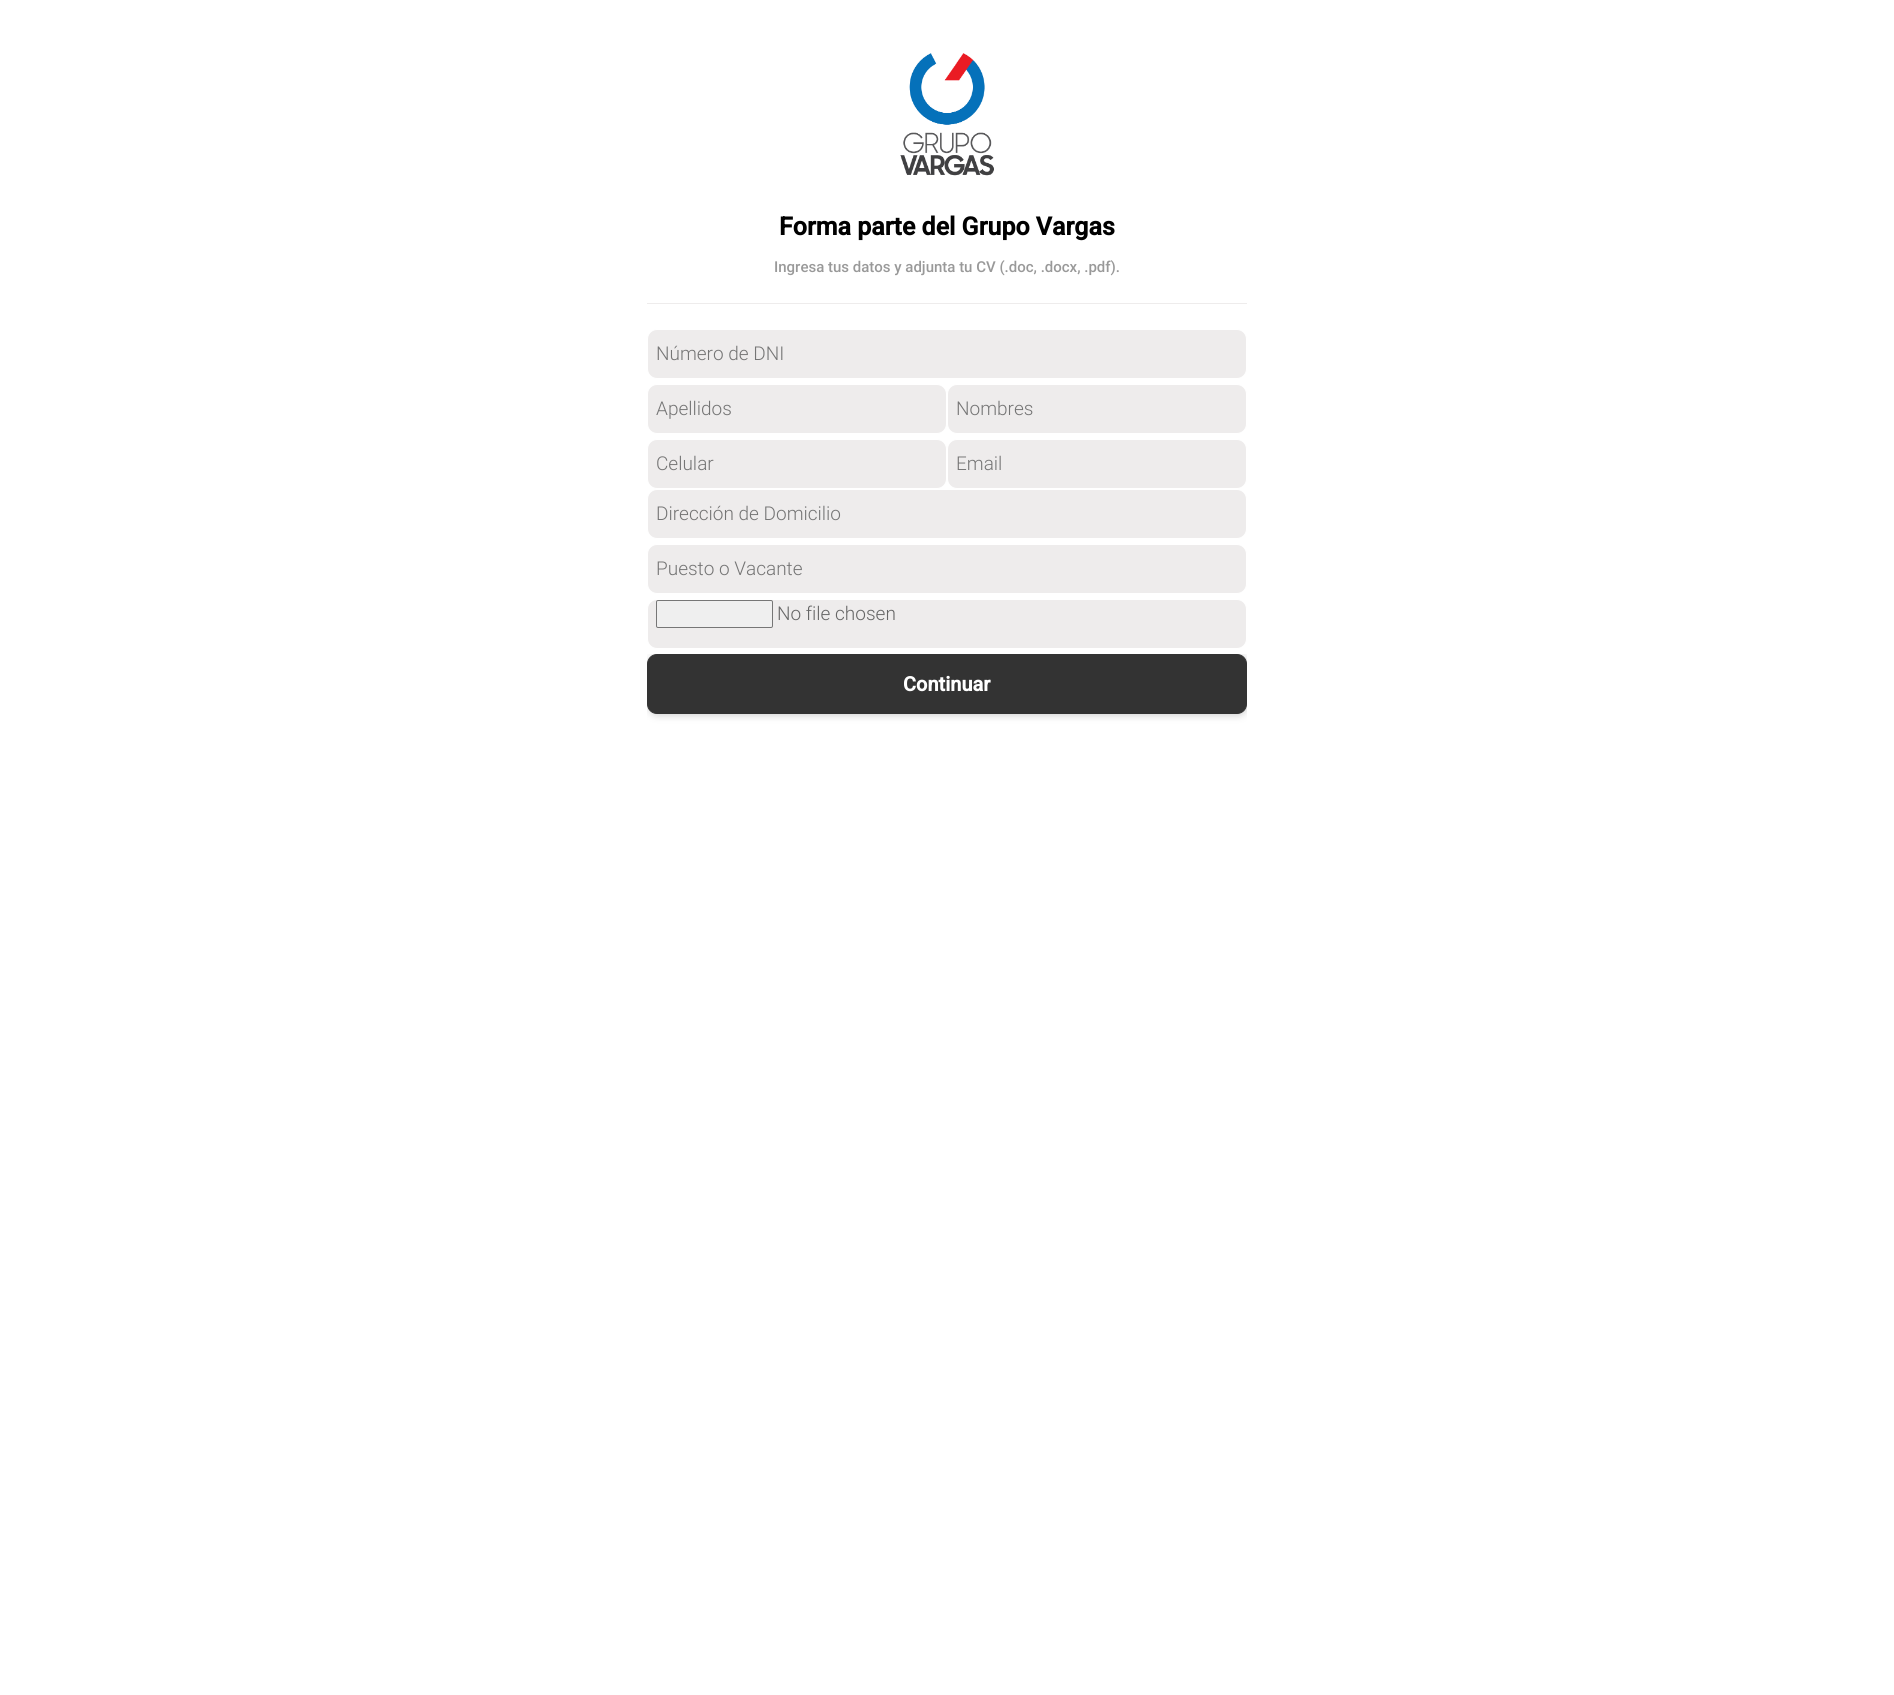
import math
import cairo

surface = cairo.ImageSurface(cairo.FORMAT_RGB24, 1894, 1695)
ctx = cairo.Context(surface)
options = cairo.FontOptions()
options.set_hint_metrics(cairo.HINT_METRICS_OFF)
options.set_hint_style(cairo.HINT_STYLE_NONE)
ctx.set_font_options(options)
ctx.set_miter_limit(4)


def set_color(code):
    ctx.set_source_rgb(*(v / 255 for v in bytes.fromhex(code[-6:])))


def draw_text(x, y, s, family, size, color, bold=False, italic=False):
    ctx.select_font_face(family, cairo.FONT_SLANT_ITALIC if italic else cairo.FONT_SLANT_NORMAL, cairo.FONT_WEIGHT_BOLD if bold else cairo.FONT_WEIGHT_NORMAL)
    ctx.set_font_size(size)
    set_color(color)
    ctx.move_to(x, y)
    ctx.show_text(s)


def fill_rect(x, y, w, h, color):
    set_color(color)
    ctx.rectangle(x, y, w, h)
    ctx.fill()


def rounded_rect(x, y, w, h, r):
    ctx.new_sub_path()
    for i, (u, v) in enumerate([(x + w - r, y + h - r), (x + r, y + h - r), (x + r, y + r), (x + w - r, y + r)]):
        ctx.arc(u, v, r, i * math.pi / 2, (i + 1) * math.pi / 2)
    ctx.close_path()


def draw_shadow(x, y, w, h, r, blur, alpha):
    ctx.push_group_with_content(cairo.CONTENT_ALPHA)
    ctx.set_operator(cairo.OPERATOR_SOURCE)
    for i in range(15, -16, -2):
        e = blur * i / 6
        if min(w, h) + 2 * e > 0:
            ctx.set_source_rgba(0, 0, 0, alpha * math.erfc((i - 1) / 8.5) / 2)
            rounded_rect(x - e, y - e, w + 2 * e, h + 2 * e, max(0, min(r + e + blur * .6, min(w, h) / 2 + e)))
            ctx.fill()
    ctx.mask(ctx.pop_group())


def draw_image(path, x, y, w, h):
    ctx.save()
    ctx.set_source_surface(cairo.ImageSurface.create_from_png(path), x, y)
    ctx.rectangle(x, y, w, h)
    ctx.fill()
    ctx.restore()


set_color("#ffffff")
ctx.paint()
draw_image("assets/img1.png", 900, 53, 94, 123)
draw_text(779, 235, "Forma parte del Grupo Vargas", "Roboto", 25, "#000000", bold=True)
draw_text(774, 272, "Ingresa tus datos y adjunta tu CV (.doc, .docx, .pdf).", "Roboto Medium", 15, "#999999")
fill_rect(647, 303, 600, 1, "#eeecec")
rounded_rect(647.5, 329.5, 599, 49, 9.5)
ctx.fill_preserve()
set_color("#ffffff")
ctx.set_line_width(1)
ctx.stroke()
draw_text(656, 360, "Número de DNI", "Roboto Light", 19, "#757575")
set_color("#eeecec")
rounded_rect(647.5, 384.5, 299, 49, 9.5)
ctx.fill_preserve()
set_color("#ffffff")
ctx.stroke()
draw_text(656, 415, "Apellidos", "Roboto Light", 19, "#757575")
set_color("#eeecec")
rounded_rect(947.5, 384.5, 299, 49, 9.5)
ctx.fill_preserve()
set_color("#ffffff")
ctx.stroke()
draw_text(956, 415, "Nombres", "Roboto Light", 19, "#757575")
set_color("#eeecec")
rounded_rect(647.5, 439.5, 299, 49, 9.5)
ctx.fill_preserve()
set_color("#ffffff")
ctx.stroke()
draw_text(656, 470, "Celular", "Roboto Light", 19, "#757575")
set_color("#eeecec")
rounded_rect(947.5, 439.5, 299, 49, 9.5)
ctx.fill_preserve()
set_color("#ffffff")
ctx.stroke()
draw_text(956, 470, "Email", "Roboto Light", 19, "#757575")
set_color("#eeecec")
rounded_rect(647.5, 489.5, 599, 49, 9.5)
ctx.fill_preserve()
set_color("#ffffff")
ctx.stroke()
draw_text(656, 520, "Dirección de Domicilio", "Roboto Light", 19, "#757575")
set_color("#eeecec")
rounded_rect(647.5, 544.5, 599, 49, 9.5)
ctx.fill_preserve()
set_color("#ffffff")
ctx.stroke()
draw_text(656, 575, "Puesto o Vacante", "Roboto Light", 19, "#757575")
set_color("#eeecec")
rounded_rect(647.5, 599.5, 599, 49, 9.5)
ctx.fill_preserve()
set_color("#ffffff")
ctx.stroke()
set_color("#efefef")
rounded_rect(656.5, 600.5, 116, 27, 1.5)
ctx.fill_preserve()
set_color("#767676")
ctx.stroke()
draw_text(777, 620, "No file chosen", "Roboto Light", 19, "#666666")
ctx.save()
ctx.rectangle(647, 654, 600, 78)
ctx.clip()
set_color("#cccccc")
draw_shadow(648, 655, 600, 60, 10, 4, 1)
ctx.restore()
set_color("#333333")
rounded_rect(647.5, 654.5, 599, 59, 9.5)
ctx.fill_preserve()
ctx.stroke()
draw_text(903, 691, "Continuar", "Roboto", 20, "#ffffff", bold=True)
surface.write_to_png("output.png")
